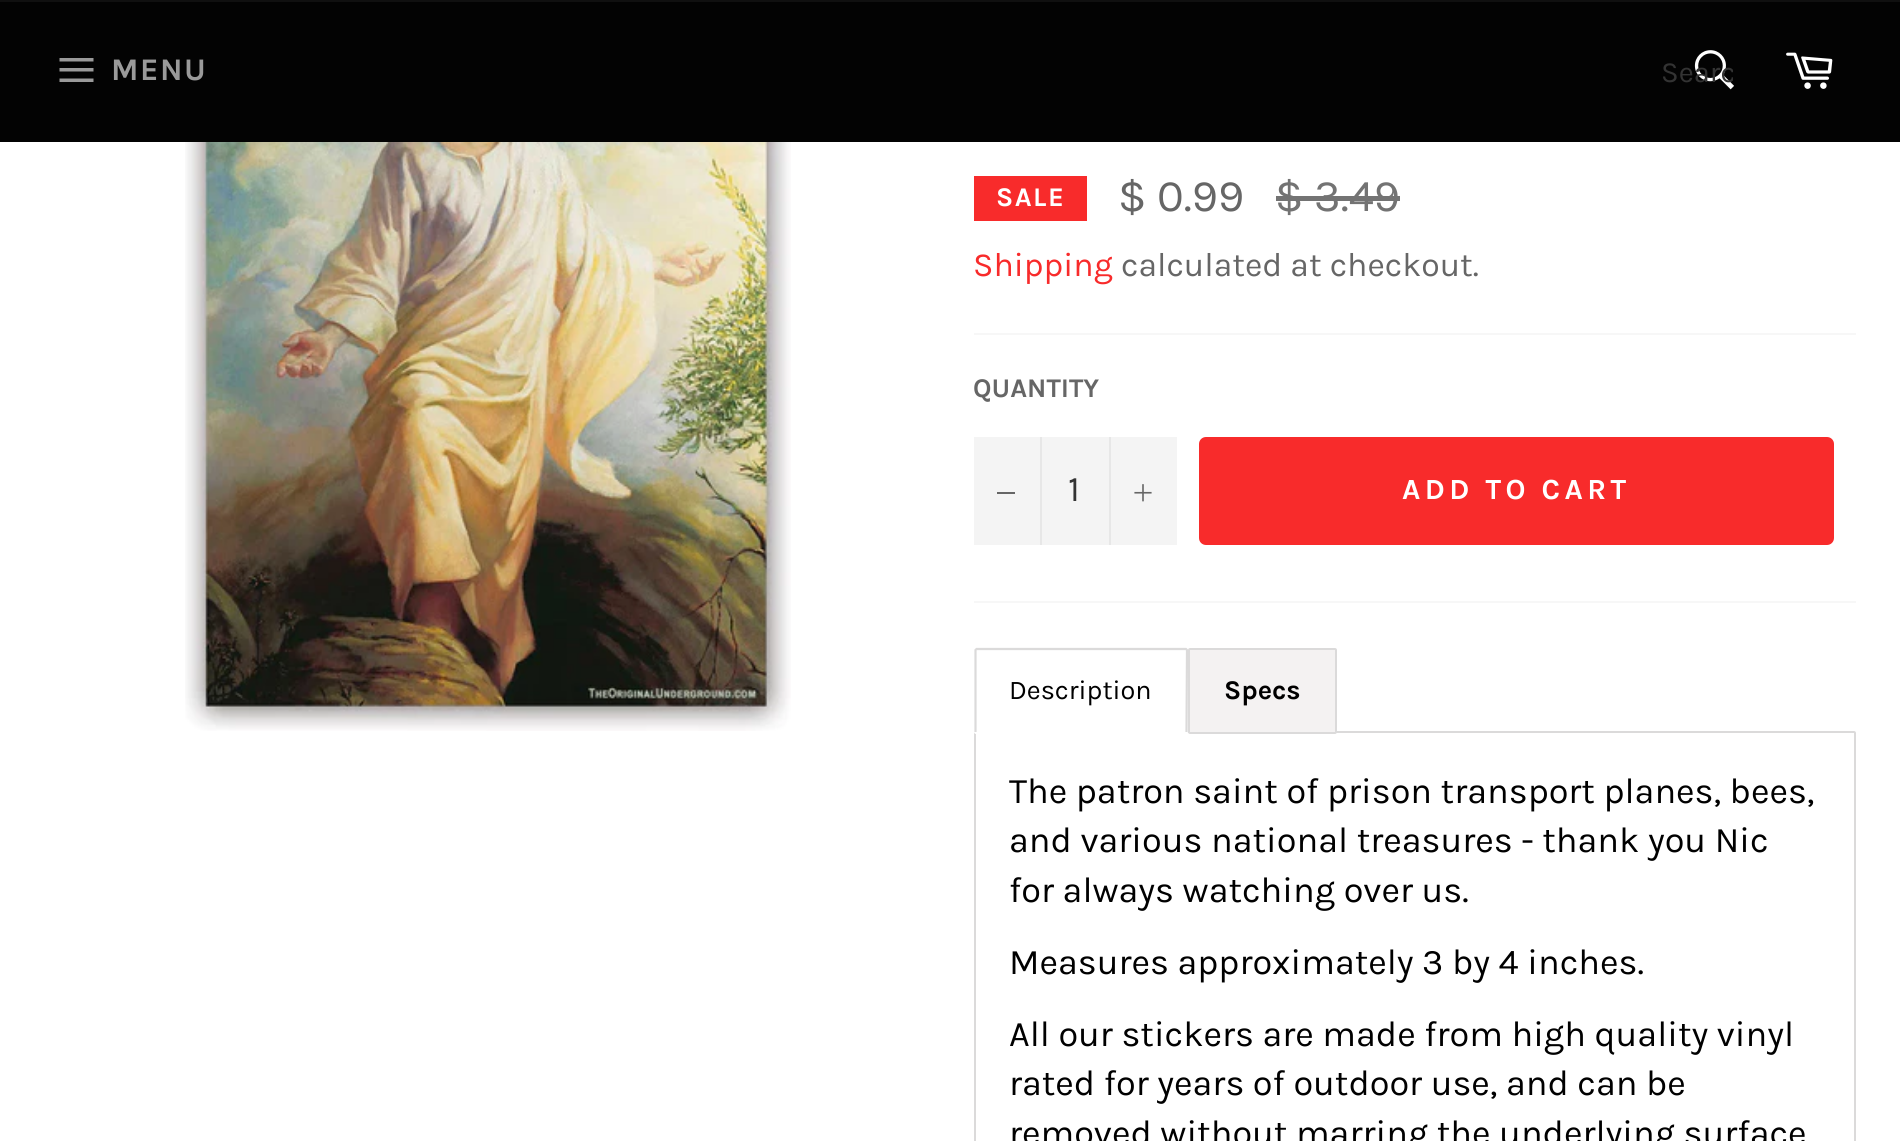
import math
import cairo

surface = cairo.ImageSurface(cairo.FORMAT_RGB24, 1900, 1141)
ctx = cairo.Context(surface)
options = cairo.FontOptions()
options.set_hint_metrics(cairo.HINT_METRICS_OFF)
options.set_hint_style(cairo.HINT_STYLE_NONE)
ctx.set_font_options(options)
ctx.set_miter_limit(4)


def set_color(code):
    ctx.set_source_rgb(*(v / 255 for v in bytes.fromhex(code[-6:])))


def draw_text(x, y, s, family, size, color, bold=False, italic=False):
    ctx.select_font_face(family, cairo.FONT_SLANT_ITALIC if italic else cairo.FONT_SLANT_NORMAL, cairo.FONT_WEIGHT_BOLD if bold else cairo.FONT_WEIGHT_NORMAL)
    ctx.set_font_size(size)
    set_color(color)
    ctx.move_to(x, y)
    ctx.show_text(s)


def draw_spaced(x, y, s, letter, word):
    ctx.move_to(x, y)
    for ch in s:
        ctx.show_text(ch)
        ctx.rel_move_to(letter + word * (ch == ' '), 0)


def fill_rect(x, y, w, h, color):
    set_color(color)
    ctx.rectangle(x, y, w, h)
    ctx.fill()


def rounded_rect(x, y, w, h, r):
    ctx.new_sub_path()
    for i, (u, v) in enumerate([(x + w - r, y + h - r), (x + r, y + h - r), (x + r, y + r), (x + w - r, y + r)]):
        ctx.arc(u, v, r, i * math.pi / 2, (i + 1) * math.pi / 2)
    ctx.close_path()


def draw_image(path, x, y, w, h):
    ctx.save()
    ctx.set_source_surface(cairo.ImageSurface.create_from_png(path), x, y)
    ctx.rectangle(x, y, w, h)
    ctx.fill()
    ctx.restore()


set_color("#ffffff")
ctx.paint()
fill_rect(0, 2, 1900, 140, "#030303")
fill_rect(0, 0, 1900, 2, "#101010")
set_color("#9a9a9a")
ctx.new_path()
ctx.move_to(59.5, 68)
ctx.line_to(93.5, 68)
ctx.line_to(93.5, 71.5)
ctx.line_to(59.5, 71.5)
ctx.close_path()
ctx.move_to(59.5, 58)
ctx.line_to(93.5, 58)
ctx.line_to(93.5, 61.5)
ctx.line_to(59.5, 61.5)
ctx.close_path()
ctx.move_to(59.5, 78.5)
ctx.line_to(93.5, 78.5)
ctx.line_to(93.5, 82)
ctx.line_to(59.5, 82)
ctx.close_path()
ctx.fill()
ctx.select_font_face("Karla", cairo.FONT_SLANT_NORMAL, cairo.FONT_WEIGHT_BOLD)
ctx.set_font_size(31.5)
draw_spaced(111, 80, "MENU", 1.5, 0)
draw_image("assets/img1.png", 1694, 50, 40, 40)
ctx.save()
ctx.rectangle(1661, 56, 72, 34)
ctx.clip()
draw_text(1661, 82, "Searc", "Karla", 29.25, "#333333")
ctx.restore()
draw_image("assets/img2.png", 1786, 52, 47, 37)
draw_image("assets/img3.png", 185, 142, 606, 589)
fill_rect(974, 176, 113, 45, "#f82b2b")
ctx.set_font_size(27)
set_color("#ffffff")
draw_spaced(996, 206, "SALE", 1.5, 0)
draw_text(1118, 211, "$ 0.99", "Karla", 45, "#666666")
draw_text(1275, 211, "$ 3.49", "Karla", 45, "#737373")
fill_rect(1276, 196, 124, 5, "#737373")
draw_text(973, 276, "Shipping", "Karla", 33.75, "#f82b2b")
draw_text(1121, 276, "calculated at checkout.", "Karla", 33.75, "#666666")
fill_rect(974, 333, 882, 2, "#f7f7f7")
draw_text(973, 397, "QUANTITY", "Karla", 27, "#666666", bold=True)
fill_rect(974, 437, 203, 108, "#f4f4f4")
fill_rect(1040, 437, 2, 108, "#e7e7e7")
fill_rect(997, 492, 18, 2, "#666666")
draw_text(1068, 501, "1", "Karla", 36, "#333333")
fill_rect(1109, 437, 2, 108, "#e7e7e7")
draw_image("assets/img4.png", 1134, 484, 18, 18)
set_color("#f82b2b")
rounded_rect(1199, 437, 635, 108, 7)
ctx.fill()
ctx.select_font_face("Karla", cairo.FONT_SLANT_NORMAL, cairo.FONT_WEIGHT_BOLD)
ctx.set_font_size(29.25)
set_color("#ffffff")
draw_spaced(1402, 499, "ADD TO CART", 4.4, 0)
fill_rect(974, 601, 882, 2, "#f7f7f7")
rounded_rect(975, 732, 880, 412, 1)
set_color("#dbdada")
ctx.stroke()
set_color("#ffffff")
rounded_rect(974, 648, 214, 86, 2)
ctx.fill()
ctx.new_path()
ctx.move_to(975.5, 732)
ctx.line_to(975.5, 650)
ctx.line_to(976.5, 649)
ctx.line_to(1186, 649)
ctx.line_to(1187, 650)
ctx.line_to(1186.5, 732)
set_color("#dbdada")
ctx.set_line_width(2.2)
ctx.stroke()
draw_text(1009, 699, "Description", "Karla", 27, "#000000")
set_color("#f4f2f2")
rounded_rect(1189, 649, 147, 84, 1)
ctx.fill_preserve()
set_color("#dbdada")
ctx.set_line_width(2)
ctx.stroke()
draw_text(1224, 699, "Specs", "Karla", 27, "#000000", bold=True)
draw_text(1009, 803, "The patron saint of prison transport planes, bees,", "Karla", 36, "#000000")
draw_text(1009, 852, "and various national treasures - thank you Nic", "Karla", 36, "#000000")
draw_text(1009, 902, "for always watching over us.", "Karla", 36, "#000000")
draw_text(1009, 974, "Measures approximately 3 by 4 inches.", "Karla", 36, "#000000")
draw_text(1009, 1046, "All our stickers are made from high quality vinyl", "Karla", 36, "#000000")
draw_text(1009, 1095, "rated for years of outdoor use, and can be", "Karla", 36, "#000000")
draw_text(1009, 1145, "removed without marring the underlying surface", "Karla", 36, "#000000")
surface.write_to_png("output.png")
